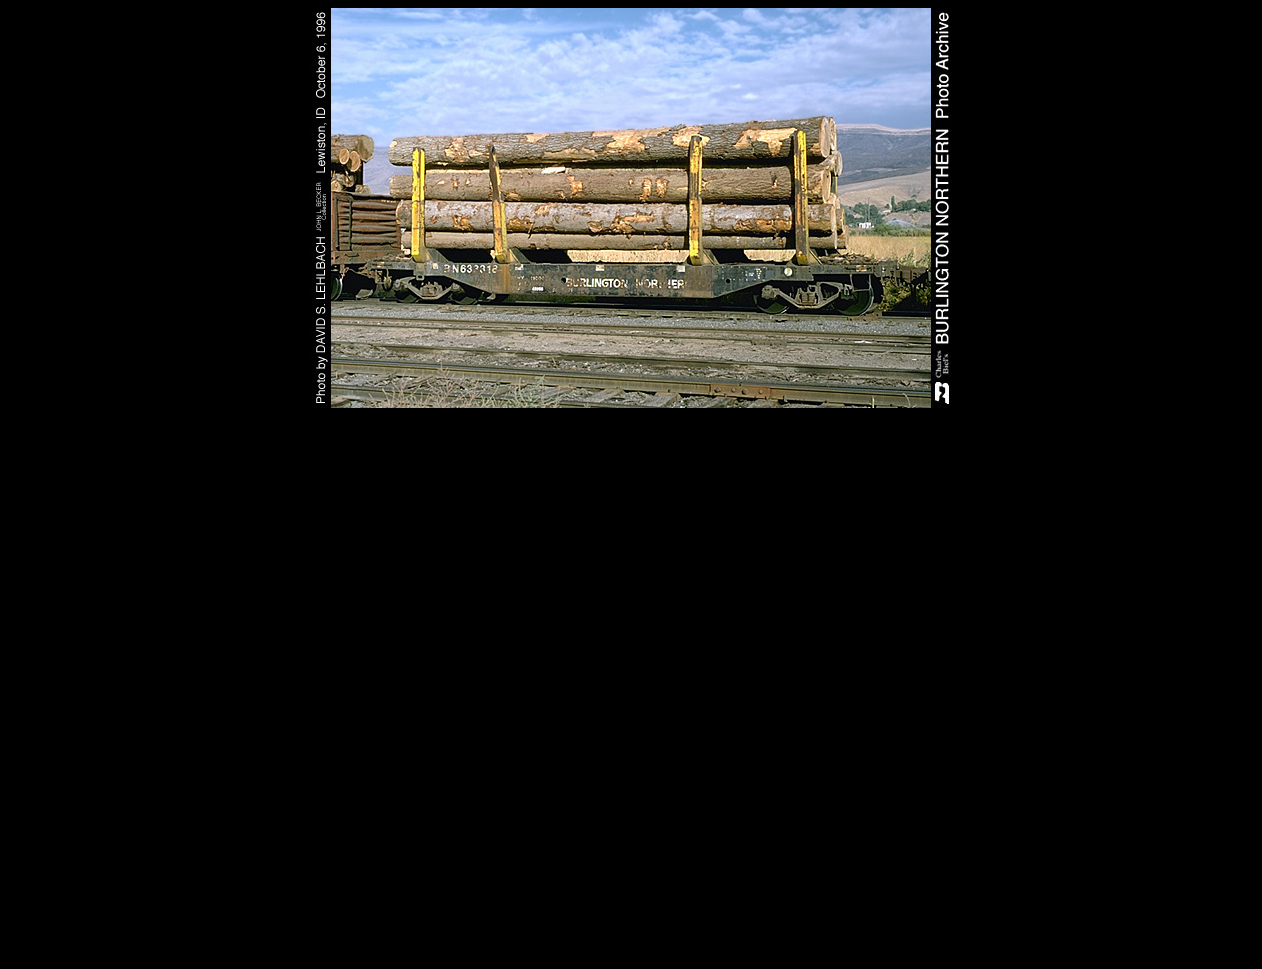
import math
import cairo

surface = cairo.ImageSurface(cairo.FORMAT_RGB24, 1262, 969)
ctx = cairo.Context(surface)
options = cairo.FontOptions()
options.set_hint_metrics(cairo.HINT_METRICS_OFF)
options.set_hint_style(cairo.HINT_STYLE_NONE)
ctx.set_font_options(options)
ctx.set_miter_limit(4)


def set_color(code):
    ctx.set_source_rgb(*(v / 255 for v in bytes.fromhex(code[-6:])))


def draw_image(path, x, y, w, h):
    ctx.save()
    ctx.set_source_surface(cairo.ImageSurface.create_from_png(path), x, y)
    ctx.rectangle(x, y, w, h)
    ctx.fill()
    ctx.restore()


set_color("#000000")
ctx.paint()
draw_image("assets/img1.png", 311, 8, 640, 400)
surface.write_to_png("output.png")
